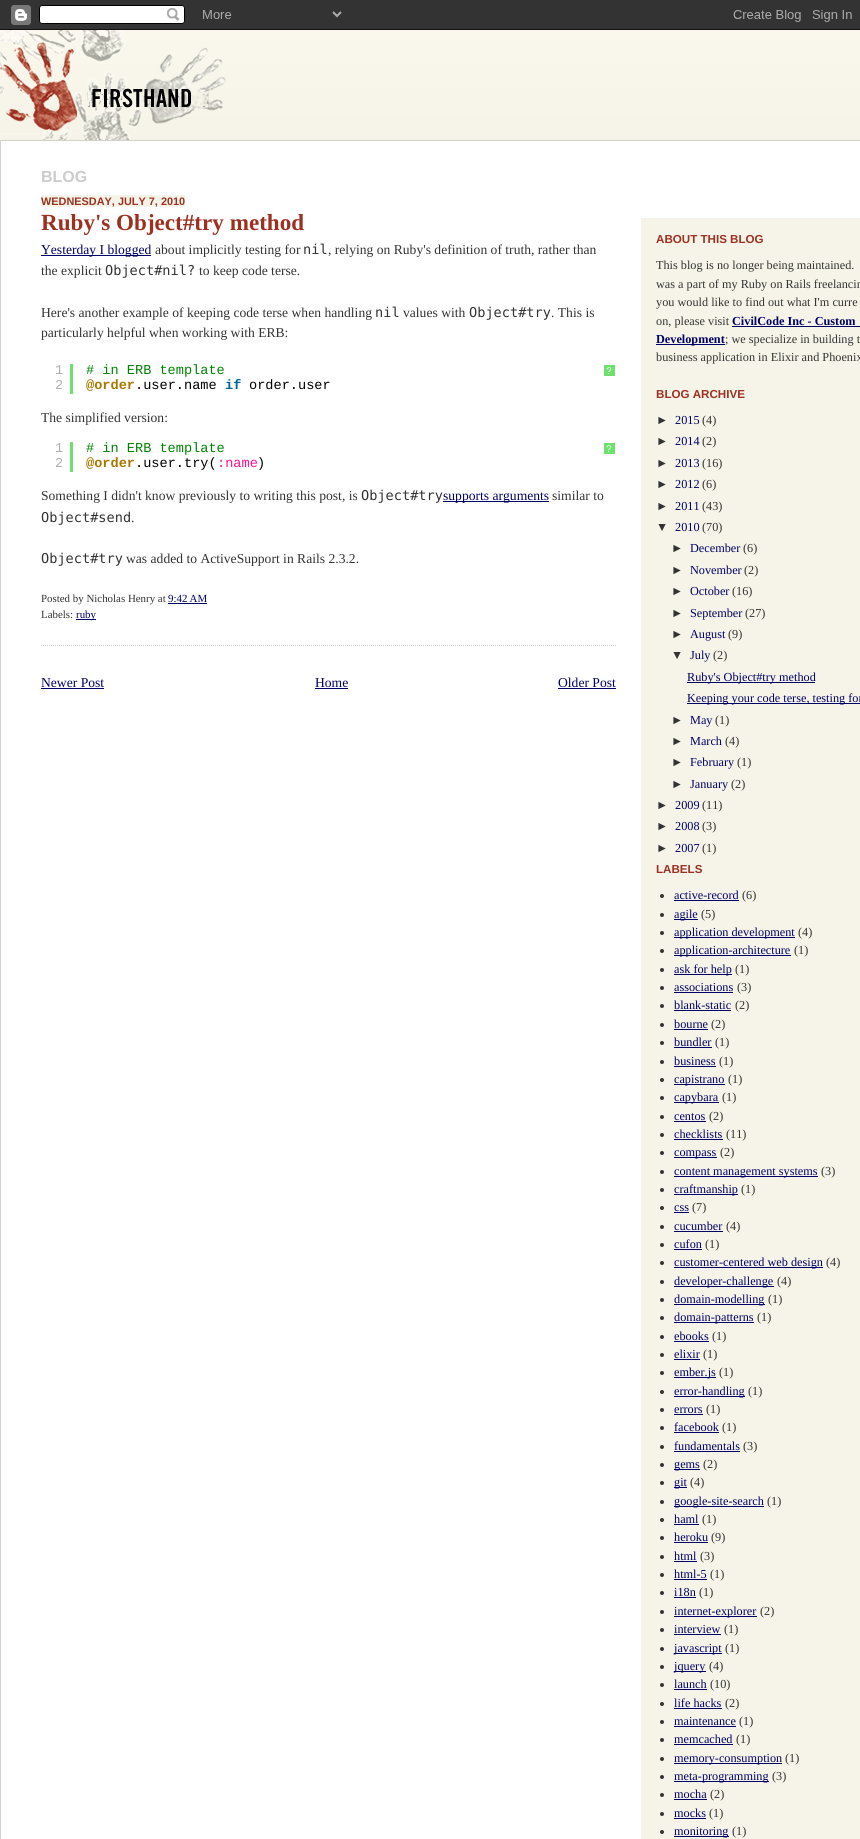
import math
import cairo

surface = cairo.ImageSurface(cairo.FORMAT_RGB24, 860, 1839)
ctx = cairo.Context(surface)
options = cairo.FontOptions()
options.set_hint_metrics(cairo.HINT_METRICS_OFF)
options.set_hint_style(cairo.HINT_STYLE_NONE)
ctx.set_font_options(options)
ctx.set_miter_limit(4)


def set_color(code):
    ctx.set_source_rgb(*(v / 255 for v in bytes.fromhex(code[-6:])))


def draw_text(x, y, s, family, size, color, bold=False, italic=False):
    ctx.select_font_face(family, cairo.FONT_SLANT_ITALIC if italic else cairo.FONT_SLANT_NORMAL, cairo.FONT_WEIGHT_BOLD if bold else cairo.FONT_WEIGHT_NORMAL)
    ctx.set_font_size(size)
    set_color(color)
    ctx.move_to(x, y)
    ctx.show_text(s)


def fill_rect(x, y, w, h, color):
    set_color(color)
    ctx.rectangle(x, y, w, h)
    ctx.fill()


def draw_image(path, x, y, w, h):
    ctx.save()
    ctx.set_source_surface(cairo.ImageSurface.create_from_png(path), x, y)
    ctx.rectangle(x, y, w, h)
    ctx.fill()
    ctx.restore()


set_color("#ffffff")
ctx.paint()
draw_image("assets/img1.png", 0, 30, 860, 110)
draw_image("assets/img2.png", 0, 0, 860, 30)
draw_image("assets/img3.png", 0, 30, 226, 110)
ctx.rectangle(0.5, 140.5, 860, 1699)
set_color("#d5d2cb")
ctx.set_line_width(1)
ctx.stroke()
draw_text(41, 182, "BLOG", "Liberation Sans", 16, "#cccccc", bold=True)
fill_rect(41, 195, 144, 12, "#f6f4e8")
draw_text(41, 205, "WEDNESDAY, JULY 7, 2010", "Liberation Sans", 10.9, "#9c3122", bold=True)
ctx.new_path()
ctx.move_to(41, 645.5)
ctx.line_to(616, 645.5)
set_color("#cccccc")
ctx.set_dash([1, 1])
ctx.stroke()
draw_text(41, 230, "Ruby's Object#try method", "Liberation Serif", 23.1, "#9c3122", bold=True)
fill_rect(41, 255, 110, 1, "#000066")
draw_text(41, 254, "Yesterday I blogged", "Liberation Serif", 13.6, "#000066")
draw_text(155, 254, "about implicitly testing for", "Liberation Serif", 13.6, "#333333")
draw_text(303, 254, "nil", "DejaVu Sans Mono", 13.6, "#333333")
draw_text(328, 254, ", relying on Ruby's definition of truth, rather than", "Liberation Serif", 13.6, "#333333")
draw_text(41, 275, "the explicit", "Liberation Serif", 13.6, "#333333")
draw_text(105, 275, "Object#nil?", "DejaVu Sans Mono", 13.6, "#333333")
draw_text(199, 275, "to keep code terse.", "Liberation Serif", 13.6, "#333333")
draw_text(41, 317, "Here's another example of keeping code terse when handling", "Liberation Serif", 13.6, "#333333")
draw_text(375, 317, "nil", "DejaVu Sans Mono", 13.6, "#333333")
draw_text(403, 317, "values with", "Liberation Serif", 13.6, "#333333")
draw_text(469, 317, "Object#try", "DejaVu Sans Mono", 13.6, "#333333")
draw_text(551, 317, ". This is", "Liberation Serif", 13.6, "#333333")
draw_text(41, 337, "particularly helpful when working with ERB:", "Liberation Serif", 13.6, "#333333")
fill_rect(70, 364, 3, 30, "#6ce26c")
draw_text(55, 374, "1", "Liberation Mono", 13.6, "#afafaf")
draw_text(55, 389, "2", "Liberation Mono", 13.6, "#afafaf")
draw_text(86, 374, "# in ERB template", "Liberation Mono", 13.6, "#008200")
draw_text(86, 389, "@order", "Liberation Mono", 13.6, "#aa7700", bold=True)
draw_text(135, 389, ".user.name", "Liberation Mono", 13.6, "#000000")
draw_text(225, 389, "if", "Liberation Mono", 13.6, "#006699", bold=True)
draw_text(249, 389, "order.user", "Liberation Mono", 13.6, "#000000")
fill_rect(604, 365, 11, 11, "#6ce26c")
draw_text(606, 374, "?", "Liberation Mono", 10, "#ffffff")
draw_text(41, 422, "The simplified version:", "Liberation Serif", 13.6, "#333333")
fill_rect(70, 442, 3, 30, "#6ce26c")
draw_text(55, 452, "1", "Liberation Mono", 13.6, "#afafaf")
draw_text(55, 467, "2", "Liberation Mono", 13.6, "#afafaf")
draw_text(86, 452, "# in ERB template", "Liberation Mono", 13.6, "#008200")
draw_text(86, 467, "@order", "Liberation Mono", 13.6, "#aa7700", bold=True)
draw_text(135, 467, ".user.try(", "Liberation Mono", 13.6, "#000000")
draw_text(217, 467, ":name", "Liberation Mono", 13.6, "#ff1493")
draw_text(257, 467, ")", "Liberation Mono", 13.6, "#000000")
fill_rect(604, 443, 11, 11, "#6ce26c")
draw_text(606, 452, "?", "Liberation Mono", 10, "#ffffff")
draw_text(41, 500, "Something I didn't know previously to writing this post, is", "Liberation Serif", 13.6, "#333333")
draw_text(361, 500, "Object#try", "DejaVu Sans Mono", 13.6, "#333333")
fill_rect(443, 501, 106, 1, "#000066")
draw_text(443, 500, "supports arguments", "Liberation Serif", 13.6, "#000066")
draw_text(552, 500, "similar to", "Liberation Serif", 13.6, "#333333")
draw_text(41, 522, "Object#send", "DejaVu Sans Mono", 13.6, "#333333")
draw_text(131, 522, ".", "Liberation Serif", 13.6, "#333333")
draw_text(41, 563, "Object#try", "DejaVu Sans Mono", 13.6, "#333333")
draw_text(126, 563, "was added to ActiveSupport in Rails 2.3.2.", "Liberation Serif", 13.6, "#333333")
draw_text(41, 602, "Posted by Nicholas Henry at", "Liberation Serif", 10.9, "#333333")
draw_text(168, 602, "9:42 AM", "Liberation Serif", 10.9, "#000066")
fill_rect(168, 603, 39, 1, "#000066")
draw_text(41, 618, "Labels:", "Liberation Serif", 10.9, "#333333")
fill_rect(76, 619, 20, 1, "#000066")
draw_text(76, 618, "ruby", "Liberation Serif", 10.9, "#000066")
draw_text(41, 687, "Newer Post", "Liberation Serif", 13.6, "#000066")
fill_rect(41, 688, 63, 1, "#000066")
draw_text(315, 687, "Home", "Liberation Serif", 13.6, "#000066")
fill_rect(315, 688, 33, 1, "#000066")
draw_text(558, 687, "Older Post", "Liberation Serif", 13.6, "#000066")
fill_rect(558, 688, 58, 1, "#000066")
fill_rect(641, 218, 219, 1621, "#f6f4e8")
draw_text(656, 243, "ABOUT THIS BLOG", "Liberation Sans", 11.6, "#9c3122", bold=True)
draw_text(656, 269, "This blog is no longer being maintained.", "Liberation Serif", 12.25, "#333333")
draw_text(656, 288, "was a part of my Ruby on Rails freelancin", "Liberation Serif", 12.25, "#333333")
draw_text(656, 306, "you would like to find out what I'm curre", "Liberation Serif", 12.25, "#333333")
draw_text(656, 325, "on, please visit", "Liberation Serif", 12.25, "#333333")
draw_text(732, 325, "CivilCode Inc - Custom", "Liberation Serif", 12.25, "#000066", bold=True)
fill_rect(732, 326, 128, 1, "#000066")
fill_rect(656, 344, 69, 1, "#000066")
draw_text(656, 343, "Development", "Liberation Serif", 12.25, "#000066", bold=True)
draw_text(725, 343, "; we specialize in building t", "Liberation Serif", 12.25, "#333333")
draw_text(656, 361, "business application in Elixir and Phoenix", "Liberation Serif", 12.25, "#333333")
draw_text(656, 398, "BLOG ARCHIVE", "Liberation Sans", 11.6, "#9c3122", bold=True)
draw_text(656, 424, "►", "Liberation Sans", 12.25, "#333333")
draw_text(675, 424, "2015", "Liberation Serif", 12.25, "#000066")
draw_text(702, 424, "(4)", "Liberation Serif", 12.25, "#333333")
draw_text(656, 445, "►", "Liberation Sans", 12.25, "#333333")
draw_text(675, 445, "2014", "Liberation Serif", 12.25, "#000066")
draw_text(702, 445, "(2)", "Liberation Serif", 12.25, "#333333")
draw_text(656, 467, "►", "Liberation Sans", 12.25, "#333333")
draw_text(675, 467, "2013", "Liberation Serif", 12.25, "#000066")
draw_text(702, 467, "(16)", "Liberation Serif", 12.25, "#333333")
draw_text(656, 488, "►", "Liberation Sans", 12.25, "#333333")
draw_text(675, 488, "2012", "Liberation Serif", 12.25, "#000066")
draw_text(702, 488, "(6)", "Liberation Serif", 12.25, "#333333")
draw_text(656, 510, "►", "Liberation Sans", 12.25, "#333333")
draw_text(675, 510, "2011", "Liberation Serif", 12.25, "#000066")
draw_text(702, 510, "(43)", "Liberation Serif", 12.25, "#333333")
draw_text(656, 531, "▼", "Liberation Sans", 12.25, "#333333")
draw_text(675, 531, "2010", "Liberation Serif", 12.25, "#000066")
draw_text(702, 531, "(70)", "Liberation Serif", 12.25, "#333333")
draw_text(671, 552, "►", "Liberation Sans", 12.25, "#333333")
draw_text(690, 552, "December", "Liberation Serif", 12.25, "#000066")
draw_text(743, 552, "(6)", "Liberation Serif", 12.25, "#333333")
draw_text(671, 574, "►", "Liberation Sans", 12.25, "#333333")
draw_text(690, 574, "November", "Liberation Serif", 12.25, "#000066")
draw_text(744, 574, "(2)", "Liberation Serif", 12.25, "#333333")
draw_text(671, 595, "►", "Liberation Sans", 12.25, "#333333")
draw_text(690, 595, "October", "Liberation Serif", 12.25, "#000066")
draw_text(732, 595, "(16)", "Liberation Serif", 12.25, "#333333")
draw_text(671, 617, "►", "Liberation Sans", 12.25, "#333333")
draw_text(690, 617, "September", "Liberation Serif", 12.25, "#000066")
draw_text(745, 617, "(27)", "Liberation Serif", 12.25, "#333333")
draw_text(671, 638, "►", "Liberation Sans", 12.25, "#333333")
draw_text(690, 638, "August", "Liberation Serif", 12.25, "#000066")
draw_text(728, 638, "(9)", "Liberation Serif", 12.25, "#333333")
draw_text(671, 659, "▼", "Liberation Sans", 12.25, "#333333")
draw_text(690, 659, "July", "Liberation Serif", 12.25, "#000066")
draw_text(713, 659, "(2)", "Liberation Serif", 12.25, "#333333")
fill_rect(687, 682, 128, 1, "#000066")
draw_text(687, 681, "Ruby's Object#try method", "Liberation Serif", 12.25, "#000066")
fill_rect(687, 703, 173, 1, "#000066")
draw_text(687, 702, "Keeping your code terse, testing for", "Liberation Serif", 12.25, "#000066")
draw_text(671, 724, "►", "Liberation Sans", 12.25, "#333333")
draw_text(690, 724, "May", "Liberation Serif", 12.25, "#000066")
draw_text(715, 724, "(1)", "Liberation Serif", 12.25, "#333333")
draw_text(671, 745, "►", "Liberation Sans", 12.25, "#333333")
draw_text(690, 745, "March", "Liberation Serif", 12.25, "#000066")
draw_text(725, 745, "(4)", "Liberation Serif", 12.25, "#333333")
draw_text(671, 766, "►", "Liberation Sans", 12.25, "#333333")
draw_text(690, 766, "February", "Liberation Serif", 12.25, "#000066")
draw_text(737, 766, "(1)", "Liberation Serif", 12.25, "#333333")
draw_text(671, 788, "►", "Liberation Sans", 12.25, "#333333")
draw_text(690, 788, "January", "Liberation Serif", 12.25, "#000066")
draw_text(731, 788, "(2)", "Liberation Serif", 12.25, "#333333")
draw_text(656, 809, "►", "Liberation Sans", 12.25, "#333333")
draw_text(675, 809, "2009", "Liberation Serif", 12.25, "#000066")
draw_text(702, 809, "(11)", "Liberation Serif", 12.25, "#333333")
draw_text(656, 830, "►", "Liberation Sans", 12.25, "#333333")
draw_text(675, 830, "2008", "Liberation Serif", 12.25, "#000066")
draw_text(702, 830, "(3)", "Liberation Serif", 12.25, "#333333")
draw_text(656, 852, "►", "Liberation Sans", 12.25, "#333333")
draw_text(675, 852, "2007", "Liberation Serif", 12.25, "#000066")
draw_text(702, 852, "(1)", "Liberation Serif", 12.25, "#333333")
draw_text(656, 873, "LABELS", "Liberation Sans", 11.6, "#9c3122", bold=True)
set_color("#333333")
ctx.new_path()
ctx.arc(662, 896, 2, 0, 2 * math.pi)
ctx.fill()
draw_text(674, 899, "active-record", "Liberation Serif", 12.25, "#000066")
fill_rect(674, 900, 65, 1, "#000066")
draw_text(742, 899, "(6)", "Liberation Serif", 12.25, "#333333")
ctx.new_path()
ctx.arc(662, 915, 2, 0, 2 * math.pi)
ctx.fill()
fill_rect(674, 919, 24, 1, "#000066")
draw_text(674, 918, "agile", "Liberation Serif", 12.25, "#000066")
draw_text(701, 918, "(5)", "Liberation Serif", 12.25, "#333333")
ctx.new_path()
ctx.arc(662, 933, 2, 0, 2 * math.pi)
ctx.fill()
fill_rect(674, 937, 121, 1, "#000066")
draw_text(674, 936, "application development", "Liberation Serif", 12.25, "#000066")
draw_text(798, 936, "(4)", "Liberation Serif", 12.25, "#333333")
ctx.new_path()
ctx.arc(662, 951, 2, 0, 2 * math.pi)
ctx.fill()
fill_rect(674, 955, 117, 1, "#000066")
draw_text(674, 954, "application-architecture", "Liberation Serif", 12.25, "#000066")
draw_text(794, 954, "(1)", "Liberation Serif", 12.25, "#333333")
ctx.new_path()
ctx.arc(662, 970, 2, 0, 2 * math.pi)
ctx.fill()
fill_rect(674, 974, 58, 1, "#000066")
draw_text(674, 973, "ask for help", "Liberation Serif", 12.25, "#000066")
draw_text(735, 973, "(1)", "Liberation Serif", 12.25, "#333333")
ctx.new_path()
ctx.arc(662, 988, 2, 0, 2 * math.pi)
ctx.fill()
draw_text(674, 991, "associations", "Liberation Serif", 12.25, "#000066")
fill_rect(674, 992, 59, 1, "#000066")
draw_text(737, 991, "(3)", "Liberation Serif", 12.25, "#333333")
ctx.new_path()
ctx.arc(662, 1006, 2, 0, 2 * math.pi)
ctx.fill()
draw_text(674, 1009, "blank-static", "Liberation Serif", 12.25, "#000066")
fill_rect(674, 1010, 57, 1, "#000066")
draw_text(735, 1009, "(2)", "Liberation Serif", 12.25, "#333333")
ctx.new_path()
ctx.arc(662, 1025, 2, 0, 2 * math.pi)
ctx.fill()
draw_text(674, 1028, "bourne", "Liberation Serif", 12.25, "#000066")
fill_rect(674, 1029, 34, 1, "#000066")
draw_text(711, 1028, "(2)", "Liberation Serif", 12.25, "#333333")
ctx.new_path()
ctx.arc(662, 1043, 2, 0, 2 * math.pi)
ctx.fill()
draw_text(674, 1046, "bundler", "Liberation Serif", 12.25, "#000066")
fill_rect(674, 1047, 38, 1, "#000066")
draw_text(715, 1046, "(1)", "Liberation Serif", 12.25, "#333333")
ctx.new_path()
ctx.arc(662, 1062, 2, 0, 2 * math.pi)
ctx.fill()
draw_text(674, 1065, "business", "Liberation Serif", 12.25, "#000066")
fill_rect(674, 1066, 42, 1, "#000066")
draw_text(719, 1065, "(1)", "Liberation Serif", 12.25, "#333333")
ctx.new_path()
ctx.arc(662, 1080, 2, 0, 2 * math.pi)
ctx.fill()
fill_rect(674, 1084, 51, 1, "#000066")
draw_text(674, 1083, "capistrano", "Liberation Serif", 12.25, "#000066")
draw_text(728, 1083, "(1)", "Liberation Serif", 12.25, "#333333")
ctx.new_path()
ctx.arc(662, 1098, 2, 0, 2 * math.pi)
ctx.fill()
fill_rect(674, 1102, 45, 1, "#000066")
draw_text(674, 1101, "capybara", "Liberation Serif", 12.25, "#000066")
draw_text(722, 1101, "(1)", "Liberation Serif", 12.25, "#333333")
ctx.new_path()
ctx.arc(662, 1117, 2, 0, 2 * math.pi)
ctx.fill()
draw_text(674, 1120, "centos", "Liberation Serif", 12.25, "#000066")
fill_rect(674, 1121, 32, 1, "#000066")
draw_text(709, 1120, "(2)", "Liberation Serif", 12.25, "#333333")
ctx.new_path()
ctx.arc(662, 1135, 2, 0, 2 * math.pi)
ctx.fill()
draw_text(674, 1138, "checklists", "Liberation Serif", 12.25, "#000066")
fill_rect(674, 1139, 49, 1, "#000066")
draw_text(726, 1138, "(11)", "Liberation Serif", 12.25, "#333333")
ctx.new_path()
ctx.arc(662, 1153, 2, 0, 2 * math.pi)
ctx.fill()
fill_rect(674, 1157, 43, 1, "#000066")
draw_text(674, 1156, "compass", "Liberation Serif", 12.25, "#000066")
draw_text(720, 1156, "(2)", "Liberation Serif", 12.25, "#333333")
ctx.new_path()
ctx.arc(662, 1172, 2, 0, 2 * math.pi)
ctx.fill()
fill_rect(674, 1176, 144, 1, "#000066")
draw_text(674, 1175, "content management systems", "Liberation Serif", 12.25, "#000066")
draw_text(821, 1175, "(3)", "Liberation Serif", 12.25, "#333333")
ctx.new_path()
ctx.arc(662, 1190, 2, 0, 2 * math.pi)
ctx.fill()
fill_rect(674, 1194, 64, 1, "#000066")
draw_text(674, 1193, "craftmanship", "Liberation Serif", 12.25, "#000066")
draw_text(741, 1193, "(1)", "Liberation Serif", 12.25, "#333333")
ctx.new_path()
ctx.arc(662, 1208, 2, 0, 2 * math.pi)
ctx.fill()
draw_text(674, 1211, "css", "Liberation Serif", 12.25, "#000066")
fill_rect(674, 1212, 15, 1, "#000066")
draw_text(692, 1211, "(7)", "Liberation Serif", 12.25, "#333333")
ctx.new_path()
ctx.arc(662, 1227, 2, 0, 2 * math.pi)
ctx.fill()
draw_text(674, 1230, "cucumber", "Liberation Serif", 12.25, "#000066")
fill_rect(674, 1231, 49, 1, "#000066")
draw_text(726, 1230, "(4)", "Liberation Serif", 12.25, "#333333")
ctx.new_path()
ctx.arc(662, 1245, 2, 0, 2 * math.pi)
ctx.fill()
draw_text(674, 1248, "cufon", "Liberation Serif", 12.25, "#000066")
fill_rect(674, 1249, 28, 1, "#000066")
draw_text(705, 1248, "(1)", "Liberation Serif", 12.25, "#333333")
ctx.new_path()
ctx.arc(662, 1263, 2, 0, 2 * math.pi)
ctx.fill()
fill_rect(674, 1267, 149, 1, "#000066")
draw_text(674, 1266, "customer-centered web design", "Liberation Serif", 12.25, "#000066")
draw_text(826, 1266, "(4)", "Liberation Serif", 12.25, "#333333")
ctx.new_path()
ctx.arc(662, 1282, 2, 0, 2 * math.pi)
ctx.fill()
fill_rect(674, 1286, 100, 1, "#000066")
draw_text(674, 1285, "developer-challenge", "Liberation Serif", 12.25, "#000066")
draw_text(777, 1285, "(4)", "Liberation Serif", 12.25, "#333333")
ctx.new_path()
ctx.arc(662, 1300, 2, 0, 2 * math.pi)
ctx.fill()
fill_rect(674, 1304, 91, 1, "#000066")
draw_text(674, 1303, "domain-modelling", "Liberation Serif", 12.25, "#000066")
draw_text(768, 1303, "(1)", "Liberation Serif", 12.25, "#333333")
ctx.new_path()
ctx.arc(662, 1318, 2, 0, 2 * math.pi)
ctx.fill()
fill_rect(674, 1322, 80, 1, "#000066")
draw_text(674, 1321, "domain-patterns", "Liberation Serif", 12.25, "#000066")
draw_text(757, 1321, "(1)", "Liberation Serif", 12.25, "#333333")
ctx.new_path()
ctx.arc(662, 1337, 2, 0, 2 * math.pi)
ctx.fill()
draw_text(674, 1340, "ebooks", "Liberation Serif", 12.25, "#000066")
fill_rect(674, 1341, 35, 1, "#000066")
draw_text(712, 1340, "(1)", "Liberation Serif", 12.25, "#333333")
ctx.new_path()
ctx.arc(662, 1355, 2, 0, 2 * math.pi)
ctx.fill()
draw_text(674, 1358, "elixir", "Liberation Serif", 12.25, "#000066")
fill_rect(674, 1359, 26, 1, "#000066")
draw_text(703, 1358, "(1)", "Liberation Serif", 12.25, "#333333")
ctx.new_path()
ctx.arc(662, 1373, 2, 0, 2 * math.pi)
ctx.fill()
fill_rect(674, 1377, 42, 1, "#000066")
draw_text(674, 1376, "ember.js", "Liberation Serif", 12.25, "#000066")
draw_text(719, 1376, "(1)", "Liberation Serif", 12.25, "#333333")
ctx.new_path()
ctx.arc(662, 1392, 2, 0, 2 * math.pi)
ctx.fill()
fill_rect(674, 1396, 71, 1, "#000066")
draw_text(674, 1395, "error-handling", "Liberation Serif", 12.25, "#000066")
draw_text(748, 1395, "(1)", "Liberation Serif", 12.25, "#333333")
ctx.new_path()
ctx.arc(662, 1410, 2, 0, 2 * math.pi)
ctx.fill()
draw_text(674, 1413, "errors", "Liberation Serif", 12.25, "#000066")
fill_rect(674, 1414, 29, 1, "#000066")
draw_text(706, 1413, "(1)", "Liberation Serif", 12.25, "#333333")
ctx.new_path()
ctx.arc(662, 1428, 2, 0, 2 * math.pi)
ctx.fill()
draw_text(674, 1431, "facebook", "Liberation Serif", 12.25, "#000066")
fill_rect(674, 1432, 45, 1, "#000066")
draw_text(722, 1431, "(1)", "Liberation Serif", 12.25, "#333333")
ctx.new_path()
ctx.arc(662, 1447, 2, 0, 2 * math.pi)
ctx.fill()
draw_text(674, 1450, "fundamentals", "Liberation Serif", 12.25, "#000066")
fill_rect(674, 1451, 66, 1, "#000066")
draw_text(743, 1450, "(3)", "Liberation Serif", 12.25, "#333333")
ctx.new_path()
ctx.arc(662, 1465, 2, 0, 2 * math.pi)
ctx.fill()
fill_rect(674, 1469, 26, 1, "#000066")
draw_text(674, 1468, "gems", "Liberation Serif", 12.25, "#000066")
draw_text(703, 1468, "(2)", "Liberation Serif", 12.25, "#333333")
ctx.new_path()
ctx.arc(662, 1483, 2, 0, 2 * math.pi)
ctx.fill()
fill_rect(674, 1487, 13, 1, "#000066")
draw_text(674, 1486, "git", "Liberation Serif", 12.25, "#000066")
draw_text(690, 1486, "(4)", "Liberation Serif", 12.25, "#333333")
ctx.new_path()
ctx.arc(662, 1502, 2, 0, 2 * math.pi)
ctx.fill()
fill_rect(674, 1506, 90, 1, "#000066")
draw_text(674, 1505, "google-site-search", "Liberation Serif", 12.25, "#000066")
draw_text(767, 1505, "(1)", "Liberation Serif", 12.25, "#333333")
ctx.new_path()
ctx.arc(662, 1520, 2, 0, 2 * math.pi)
ctx.fill()
draw_text(674, 1523, "haml", "Liberation Serif", 12.25, "#000066")
fill_rect(674, 1524, 25, 1, "#000066")
draw_text(702, 1523, "(1)", "Liberation Serif", 12.25, "#333333")
ctx.new_path()
ctx.arc(662, 1538, 2, 0, 2 * math.pi)
ctx.fill()
draw_text(674, 1541, "heroku", "Liberation Serif", 12.25, "#000066")
fill_rect(674, 1542, 34, 1, "#000066")
draw_text(711, 1541, "(9)", "Liberation Serif", 12.25, "#333333")
ctx.new_path()
ctx.arc(662, 1557, 2, 0, 2 * math.pi)
ctx.fill()
draw_text(674, 1560, "html", "Liberation Serif", 12.25, "#000066")
fill_rect(674, 1561, 23, 1, "#000066")
draw_text(700, 1560, "(3)", "Liberation Serif", 12.25, "#333333")
ctx.new_path()
ctx.arc(662, 1575, 2, 0, 2 * math.pi)
ctx.fill()
draw_text(674, 1578, "html-5", "Liberation Serif", 12.25, "#000066")
fill_rect(674, 1579, 33, 1, "#000066")
draw_text(710, 1578, "(1)", "Liberation Serif", 12.25, "#333333")
ctx.new_path()
ctx.arc(662, 1593, 2, 0, 2 * math.pi)
ctx.fill()
draw_text(674, 1596, "i18n", "Liberation Serif", 12.25, "#000066")
fill_rect(674, 1597, 22, 1, "#000066")
draw_text(699, 1596, "(1)", "Liberation Serif", 12.25, "#333333")
ctx.new_path()
ctx.arc(662, 1612, 2, 0, 2 * math.pi)
ctx.fill()
fill_rect(674, 1616, 83, 1, "#000066")
draw_text(674, 1615, "internet-explorer", "Liberation Serif", 12.25, "#000066")
draw_text(760, 1615, "(2)", "Liberation Serif", 12.25, "#333333")
ctx.new_path()
ctx.arc(662, 1630, 2, 0, 2 * math.pi)
ctx.fill()
draw_text(674, 1633, "interview", "Liberation Serif", 12.25, "#000066")
fill_rect(674, 1634, 47, 1, "#000066")
draw_text(724, 1633, "(1)", "Liberation Serif", 12.25, "#333333")
ctx.new_path()
ctx.arc(662, 1649, 2, 0, 2 * math.pi)
ctx.fill()
fill_rect(674, 1653, 48, 1, "#000066")
draw_text(674, 1652, "javascript", "Liberation Serif", 12.25, "#000066")
draw_text(725, 1652, "(1)", "Liberation Serif", 12.25, "#333333")
ctx.new_path()
ctx.arc(662, 1667, 2, 0, 2 * math.pi)
ctx.fill()
fill_rect(674, 1671, 32, 1, "#000066")
draw_text(674, 1670, "jquery", "Liberation Serif", 12.25, "#000066")
draw_text(709, 1670, "(4)", "Liberation Serif", 12.25, "#333333")
ctx.new_path()
ctx.arc(662, 1685, 2, 0, 2 * math.pi)
ctx.fill()
draw_text(674, 1688, "launch", "Liberation Serif", 12.25, "#000066")
fill_rect(674, 1689, 33, 1, "#000066")
draw_text(710, 1688, "(10)", "Liberation Serif", 12.25, "#333333")
ctx.new_path()
ctx.arc(662, 1704, 2, 0, 2 * math.pi)
ctx.fill()
draw_text(674, 1707, "life hacks", "Liberation Serif", 12.25, "#000066")
fill_rect(674, 1708, 48, 1, "#000066")
draw_text(725, 1707, "(2)", "Liberation Serif", 12.25, "#333333")
ctx.new_path()
ctx.arc(662, 1722, 2, 0, 2 * math.pi)
ctx.fill()
draw_text(674, 1725, "maintenance", "Liberation Serif", 12.25, "#000066")
fill_rect(674, 1726, 62, 1, "#000066")
draw_text(739, 1725, "(1)", "Liberation Serif", 12.25, "#333333")
ctx.new_path()
ctx.arc(662, 1740, 2, 0, 2 * math.pi)
ctx.fill()
draw_text(674, 1743, "memcached", "Liberation Serif", 12.25, "#000066")
fill_rect(674, 1744, 59, 1, "#000066")
draw_text(736, 1743, "(1)", "Liberation Serif", 12.25, "#333333")
ctx.new_path()
ctx.arc(662, 1759, 2, 0, 2 * math.pi)
ctx.fill()
fill_rect(674, 1763, 108, 1, "#000066")
draw_text(674, 1762, "memory-consumption", "Liberation Serif", 12.25, "#000066")
draw_text(785, 1762, "(1)", "Liberation Serif", 12.25, "#333333")
ctx.new_path()
ctx.arc(662, 1777, 2, 0, 2 * math.pi)
ctx.fill()
fill_rect(674, 1781, 95, 1, "#000066")
draw_text(674, 1780, "meta-programming", "Liberation Serif", 12.25, "#000066")
draw_text(772, 1780, "(3)", "Liberation Serif", 12.25, "#333333")
ctx.new_path()
ctx.arc(662, 1795, 2, 0, 2 * math.pi)
ctx.fill()
draw_text(674, 1798, "mocha", "Liberation Serif", 12.25, "#000066")
fill_rect(674, 1799, 33, 1, "#000066")
draw_text(710, 1798, "(2)", "Liberation Serif", 12.25, "#333333")
ctx.new_path()
ctx.arc(662, 1814, 2, 0, 2 * math.pi)
ctx.fill()
draw_text(674, 1817, "mocks", "Liberation Serif", 12.25, "#000066")
fill_rect(674, 1818, 32, 1, "#000066")
draw_text(709, 1817, "(1)", "Liberation Serif", 12.25, "#333333")
ctx.new_path()
ctx.arc(662, 1832, 2, 0, 2 * math.pi)
ctx.fill()
fill_rect(674, 1836, 55, 1, "#000066")
draw_text(674, 1835, "monitoring", "Liberation Serif", 12.25, "#000066")
draw_text(732, 1835, "(1)", "Liberation Serif", 12.25, "#333333")
surface.write_to_png("output.png")
